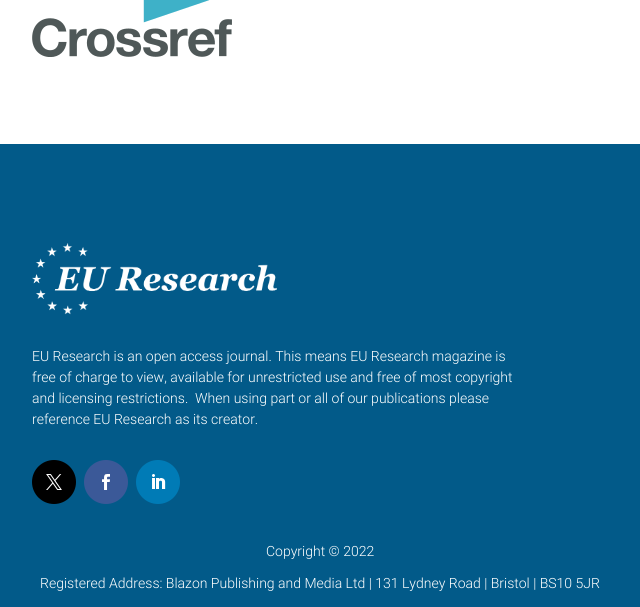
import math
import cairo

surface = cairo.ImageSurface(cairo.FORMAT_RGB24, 640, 607)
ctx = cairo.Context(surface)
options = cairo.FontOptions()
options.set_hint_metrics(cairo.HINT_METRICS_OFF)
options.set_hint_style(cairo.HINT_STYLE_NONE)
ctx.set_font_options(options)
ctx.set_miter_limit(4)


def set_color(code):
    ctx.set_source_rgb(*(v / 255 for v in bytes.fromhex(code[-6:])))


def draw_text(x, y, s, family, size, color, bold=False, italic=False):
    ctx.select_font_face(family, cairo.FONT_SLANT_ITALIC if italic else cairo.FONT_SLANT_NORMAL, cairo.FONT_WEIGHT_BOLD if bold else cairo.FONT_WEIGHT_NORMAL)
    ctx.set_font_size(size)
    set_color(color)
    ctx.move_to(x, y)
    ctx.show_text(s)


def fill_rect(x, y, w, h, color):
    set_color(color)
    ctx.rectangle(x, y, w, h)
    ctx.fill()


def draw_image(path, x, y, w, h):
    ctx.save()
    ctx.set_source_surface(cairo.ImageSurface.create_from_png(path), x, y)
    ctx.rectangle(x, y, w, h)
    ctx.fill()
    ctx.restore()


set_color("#ffffff")
ctx.paint()
draw_image("assets/img1.png", 32, 0, 200, 57)
fill_rect(0, 144, 640, 463, "#025a89")
draw_image("assets/img2.png", 32, 243, 245, 72)
draw_text(32, 361, "EU Research is an open access journal. This means EU Research magazine is", "Roboto Light", 14, "#ffffff")
draw_text(32, 382, "free of charge to view, available for unrestricted use and free of most copyright", "Roboto Light", 14, "#ffffff")
draw_text(32, 403, "and licensing restrictions.  When using part or all of our publications please", "Roboto Light", 14, "#ffffff")
draw_text(32, 424, "reference EU Research as its creator.", "Roboto Light", 14, "#ffffff")
set_color("#000000")
ctx.new_path()
ctx.arc(54, 482, 22, 0, 2 * math.pi)
ctx.fill()
draw_image("assets/img3.png", 46, 474, 16, 16)
set_color("#3b5998")
ctx.arc(106, 482, 22, 0, 2 * math.pi)
ctx.fill()
draw_image("assets/img4.png", 102, 474, 8, 16)
set_color("#007bb6")
ctx.arc(158, 482, 22, 0, 2 * math.pi)
ctx.fill()
draw_image("assets/img5.png", 152, 474, 14, 15)
draw_text(266, 556, "Copyright © 2022", "Roboto Light", 14, "#ffffff")
draw_text(40, 588, "Registered Address: Blazon Publishing and Media Ltd | 131 Lydney Road | Bristol | BS10 5JR", "Roboto Light", 14, "#ffffff")
surface.write_to_png("output.png")
